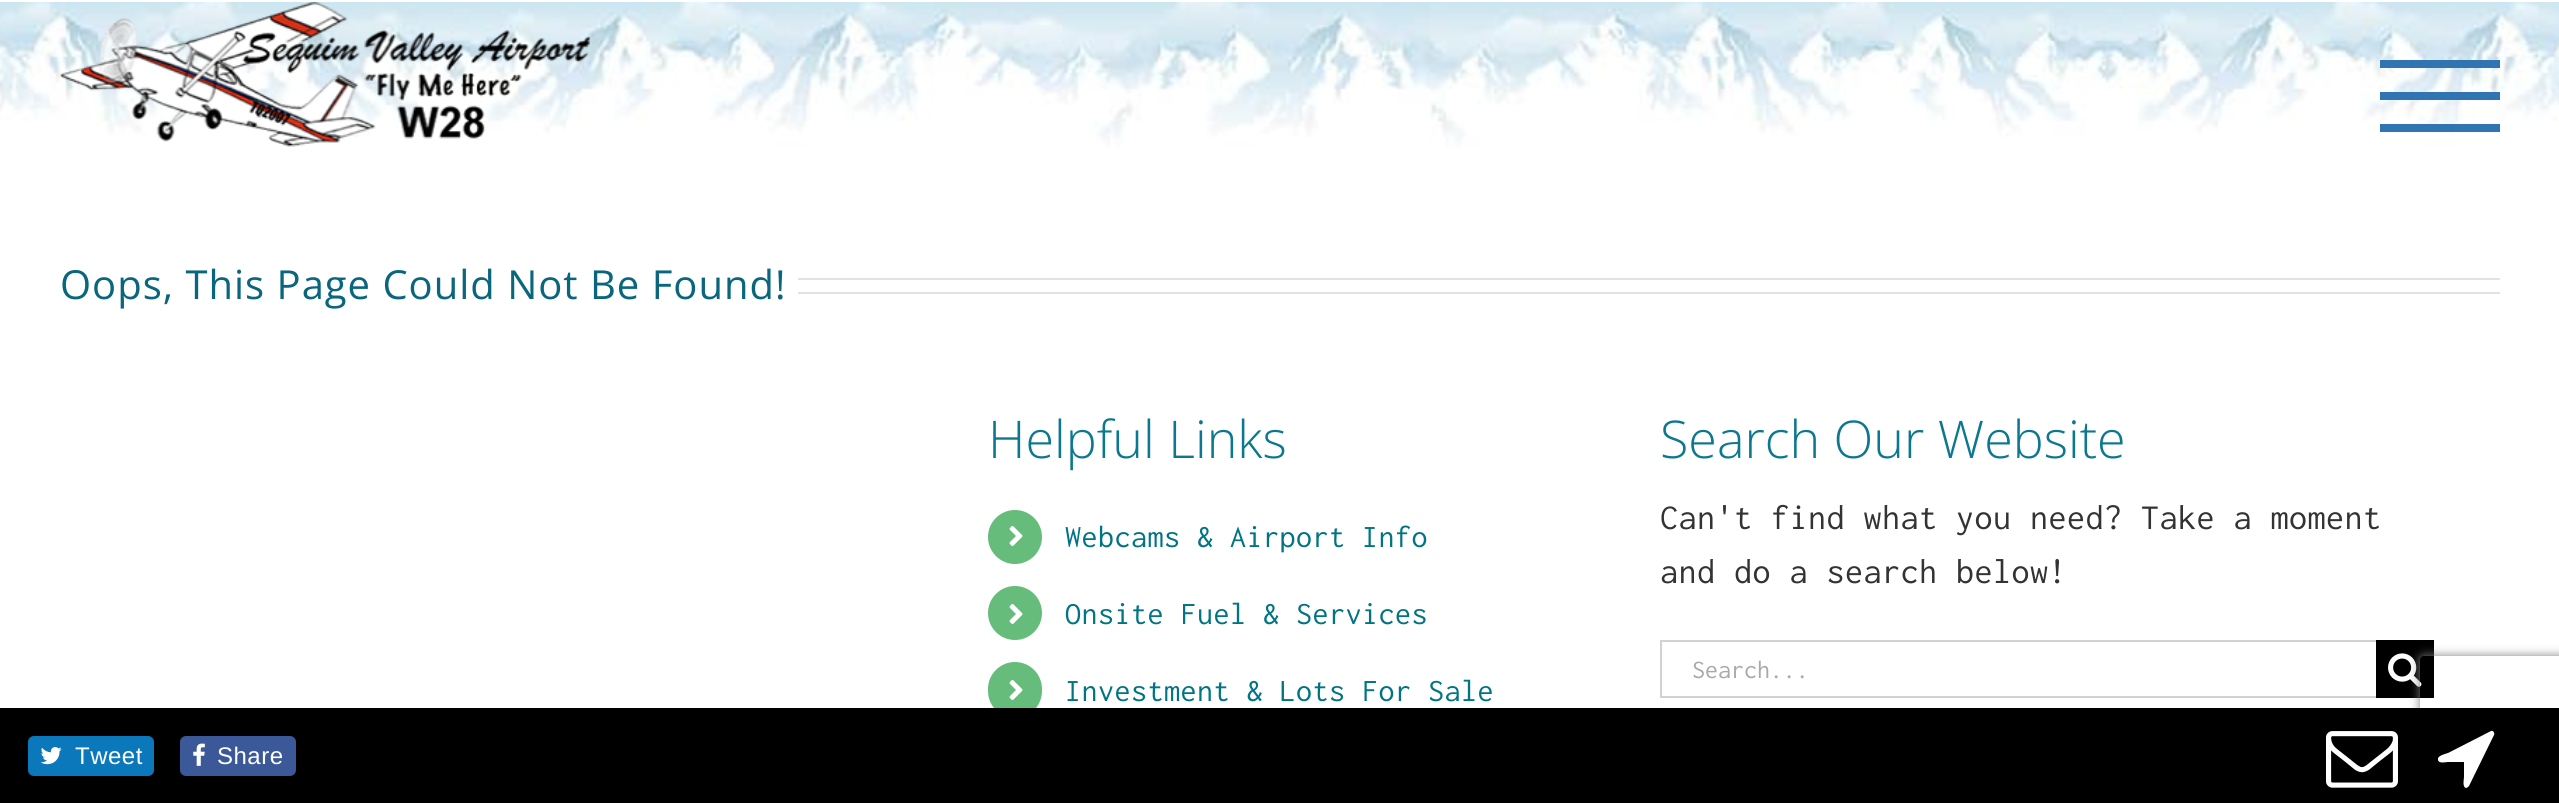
import math
import cairo

surface = cairo.ImageSurface(cairo.FORMAT_RGB24, 2559, 803)
ctx = cairo.Context(surface)
options = cairo.FontOptions()
options.set_hint_metrics(cairo.HINT_METRICS_OFF)
options.set_hint_style(cairo.HINT_STYLE_NONE)
ctx.set_font_options(options)
ctx.set_miter_limit(4)


def set_color(code):
    ctx.set_source_rgb(*(v / 255 for v in bytes.fromhex(code[-6:])))


def draw_text(x, y, s, family, size, color, bold=False, italic=False):
    ctx.select_font_face(family, cairo.FONT_SLANT_ITALIC if italic else cairo.FONT_SLANT_NORMAL, cairo.FONT_WEIGHT_BOLD if bold else cairo.FONT_WEIGHT_NORMAL)
    ctx.set_font_size(size)
    set_color(color)
    ctx.move_to(x, y)
    ctx.show_text(s)


def draw_spaced(x, y, s, letter, word):
    ctx.move_to(x, y)
    for ch in s:
        ctx.show_text(ch)
        ctx.rel_move_to(letter + word * (ch == ' '), 0)


def fill_rect(x, y, w, h, color):
    set_color(color)
    ctx.rectangle(x, y, w, h)
    ctx.fill()


def rounded_rect(x, y, w, h, r):
    ctx.new_sub_path()
    for i, (u, v) in enumerate([(x + w - r, y + h - r), (x + r, y + h - r), (x + r, y + r), (x + w - r, y + r)]):
        ctx.arc(u, v, r, i * math.pi / 2, (i + 1) * math.pi / 2)
    ctx.close_path()


def draw_shadow(x, y, w, h, r, blur, alpha):
    ctx.push_group_with_content(cairo.CONTENT_ALPHA)
    ctx.set_operator(cairo.OPERATOR_SOURCE)
    for i in range(15, -16, -2):
        e = blur * i / 6
        if min(w, h) + 2 * e > 0:
            ctx.set_source_rgba(0, 0, 0, alpha * math.erfc((i - 1) / 8.5) / 2)
            rounded_rect(x - e, y - e, w + 2 * e, h + 2 * e, max(0, min(r + e + blur * .6, min(w, h) / 2 + e)))
            ctx.fill()
    ctx.mask(ctx.pop_group())


def draw_image(path, x, y, w, h):
    ctx.save()
    ctx.set_source_surface(cairo.ImageSurface.create_from_png(path), x, y)
    ctx.rectangle(x, y, w, h)
    ctx.fill()
    ctx.restore()


set_color("#ffffff")
ctx.paint()
draw_image("assets/img1.png", 0, 2, 2559, 146)
draw_image("assets/img2.png", 60, 2, 530, 145)
fill_rect(2380, 60, 120, 8, "#3174b2")
fill_rect(2380, 92, 120, 8, "#3174b2")
fill_rect(2380, 124, 120, 8, "#3174b2")
ctx.select_font_face("Open Sans")
ctx.set_font_size(40)
set_color("#09667d")
draw_spaced(60, 299, "Oops, This Page Could Not Be Found!", 1, 0)
fill_rect(798, 278, 1702, 2, "#e2e2e2")
fill_rect(798, 292, 1702, 2, "#e2e2e2")
draw_text(988, 458, "Helpful Links", "Open Sans Light", 52, "#0c788f")
set_color("#65bc7b")
ctx.new_path()
ctx.arc(1015, 537, 27, 0, 2 * math.pi)
ctx.fill()
draw_image("assets/img3.png", 1009, 526, 14, 20)
ctx.select_font_face("Inconsolata")
ctx.set_font_size(32)
set_color("#007483")
draw_spaced(1065, 547, "Webcams & Airport Info", 0.5, 0)
set_color("#65bc7b")
ctx.new_path()
ctx.arc(1015, 613, 27, 0, 2 * math.pi)
ctx.fill()
draw_image("assets/img3.png", 1009, 604, 14, 20)
set_color("#007483")
draw_spaced(1065, 624, "Onsite Fuel & Services", 0.5, 0)
set_color("#65bc7b")
rounded_rect(988, 662, 54, 56, 27)
ctx.fill()
draw_image("assets/img3.png", 1009, 680, 14, 20)
set_color("#007483")
draw_spaced(1065, 701, "Investment & Lots For Sale", 0.5, 0)
draw_text(1660, 458, "Search Our Website", "Open Sans Light", 52, "#0c788f")
ctx.select_font_face("Inconsolata")
ctx.set_font_size(36)
set_color("#333333")
draw_spaced(1660, 529, "Can't find what you need? Take a moment", 0.5, 0)
draw_spaced(1660, 583, "and do a search below!", 0.5, 0)
fill_rect(1660, 640, 716, 2, "#d2d2d2")
fill_rect(1660, 696, 716, 2, "#d2d2d2")
fill_rect(1660, 640, 2, 58, "#d2d2d2")
draw_text(1692, 678, "Search...", "Inconsolata", 26, "#aaa9a9")
fill_rect(2376, 640, 58, 58, "#000000")
draw_image("assets/img4.png", 2388, 653, 34, 34)
ctx.save()
ctx.set_fill_rule(cairo.FILL_RULE_EVEN_ODD)
ctx.new_path()
ctx.move_to(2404, 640)
ctx.line_to(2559, 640)
ctx.line_to(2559, 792)
ctx.line_to(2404, 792)
ctx.close_path()
ctx.move_to(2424, 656)
ctx.line_to(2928, 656)
ctx.curve_to(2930, 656, 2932, 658, 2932, 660)
ctx.line_to(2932, 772)
ctx.curve_to(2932, 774, 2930, 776, 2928, 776)
ctx.line_to(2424, 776)
ctx.curve_to(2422, 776, 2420, 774, 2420, 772)
ctx.line_to(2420, 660)
ctx.curve_to(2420, 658, 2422, 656, 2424, 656)
ctx.close_path()
ctx.clip()
set_color("#808080")
draw_shadow(2420, 656, 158, 120, 4, 5, 1)
ctx.restore()
fill_rect(0, 708, 2559, 95, "#000000")
set_color("#0b78bc")
rounded_rect(28, 736, 126, 40, 6)
ctx.fill()
draw_image("assets/img5.png", 40, 747, 22, 18)
ctx.select_font_face("Liberation Sans")
ctx.set_font_size(24)
set_color("#ffffff")
draw_spaced(75, 764, "Tweet", 0.5, 0)
set_color("#3b5998")
rounded_rect(180, 736, 116, 40, 6)
ctx.fill()
draw_image("assets/img6.png", 193, 743, 12, 23)
set_color("#ffffff")
draw_spaced(217, 764, "Share", 0.5, 0)
draw_image("assets/img7.png", 2326, 731, 72, 57)
ctx.new_path()
ctx.move_to(2494, 735)
ctx.line_to(2469, 786)
ctx.curve_to(2468, 787, 2467, 788, 2466, 788)
ctx.curve_to(2462, 787, 2464, 779, 2464, 777)
ctx.line_to(2464, 762)
ctx.line_to(2448, 762)
ctx.curve_to(2446, 762, 2439, 764, 2438, 760)
ctx.line_to(2438, 758)
ctx.curve_to(2440, 755, 2445, 754, 2448, 753)
ctx.line_to(2491, 731)
ctx.curve_to(2493, 730, 2495, 733, 2494, 735)
ctx.close_path()
ctx.fill()
surface.write_to_png("output.png")
